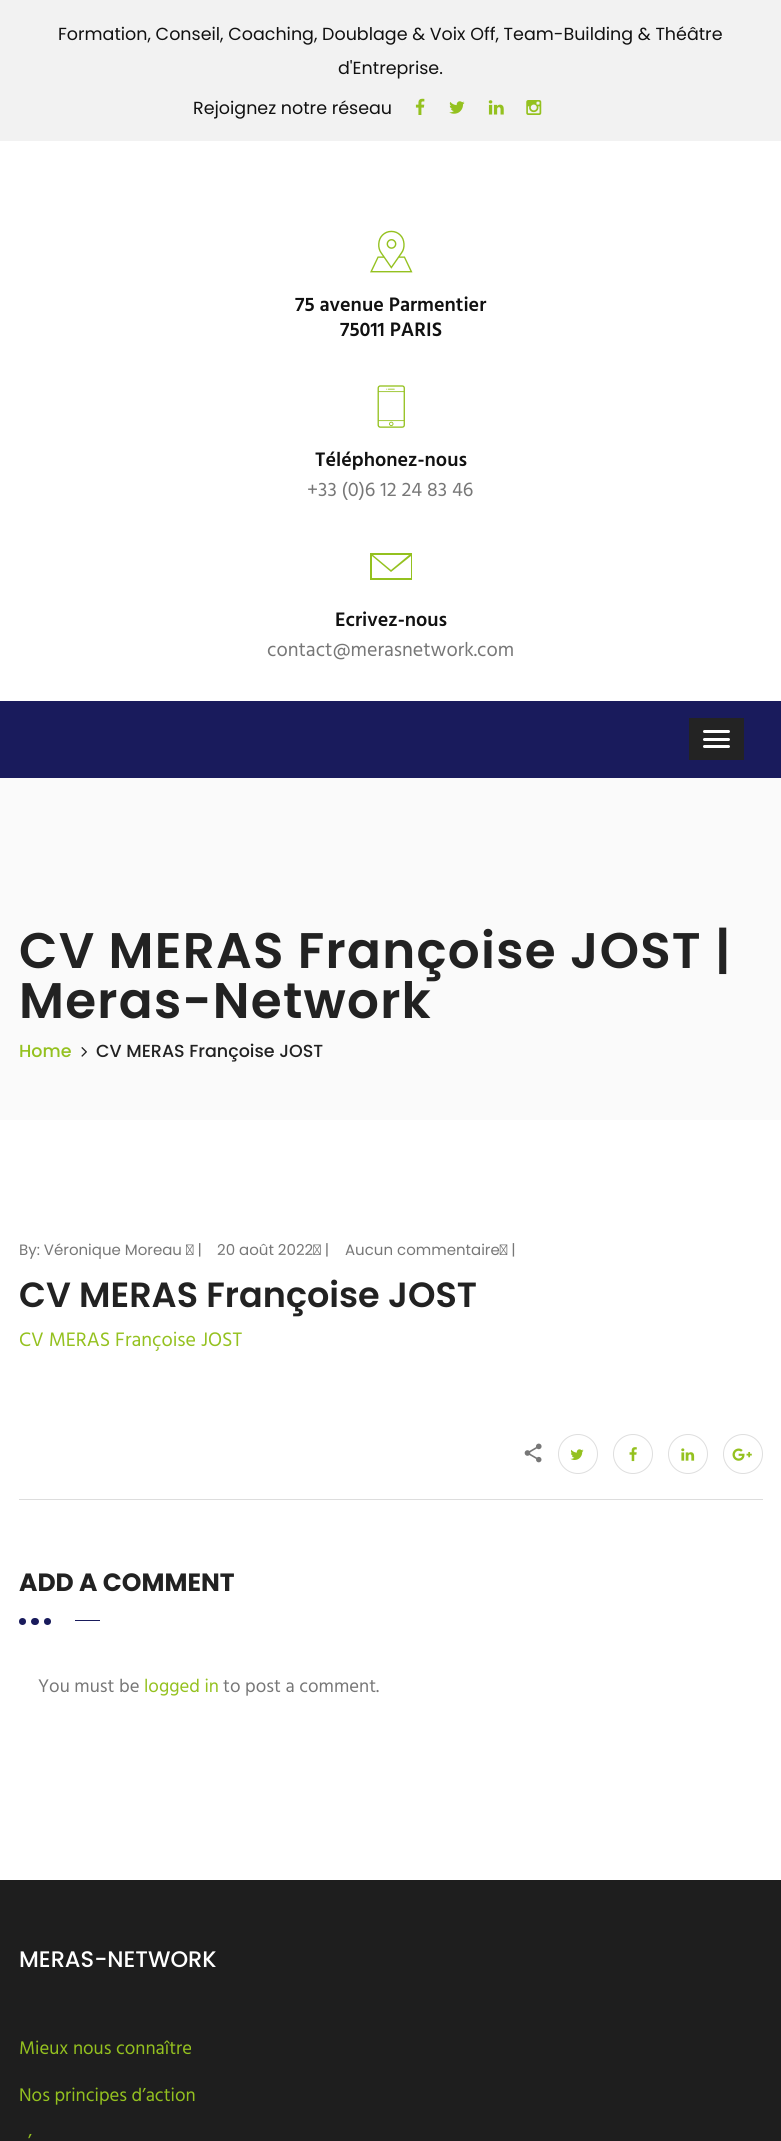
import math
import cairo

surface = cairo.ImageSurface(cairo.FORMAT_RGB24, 781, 2141)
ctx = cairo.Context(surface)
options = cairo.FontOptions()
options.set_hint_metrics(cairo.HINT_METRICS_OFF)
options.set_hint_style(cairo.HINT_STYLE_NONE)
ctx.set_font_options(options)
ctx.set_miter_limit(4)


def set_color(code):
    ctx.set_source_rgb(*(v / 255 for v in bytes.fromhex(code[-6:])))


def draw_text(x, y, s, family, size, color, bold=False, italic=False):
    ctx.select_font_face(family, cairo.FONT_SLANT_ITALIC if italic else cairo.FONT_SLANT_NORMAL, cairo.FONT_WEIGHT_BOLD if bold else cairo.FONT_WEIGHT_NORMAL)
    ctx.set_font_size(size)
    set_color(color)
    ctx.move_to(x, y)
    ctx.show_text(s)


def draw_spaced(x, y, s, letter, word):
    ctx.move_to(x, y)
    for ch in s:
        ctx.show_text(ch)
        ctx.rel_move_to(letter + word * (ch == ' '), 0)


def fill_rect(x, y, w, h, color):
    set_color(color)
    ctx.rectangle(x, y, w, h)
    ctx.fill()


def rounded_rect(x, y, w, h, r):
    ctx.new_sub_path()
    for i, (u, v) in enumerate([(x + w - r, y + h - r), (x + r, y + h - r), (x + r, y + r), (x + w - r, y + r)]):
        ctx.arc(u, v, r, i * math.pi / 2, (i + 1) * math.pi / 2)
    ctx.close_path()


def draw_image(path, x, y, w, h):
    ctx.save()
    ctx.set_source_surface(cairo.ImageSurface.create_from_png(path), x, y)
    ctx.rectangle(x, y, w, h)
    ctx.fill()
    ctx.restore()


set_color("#ffffff")
ctx.paint()
fill_rect(0, 0, 781, 141, "#f2f2f2")
draw_text(58, 40, "Formation, Conseil, Coaching, Doublage & Voix Off, Team-Building & Théâtre", "Poppins", 17.5, "#111111")
draw_text(338, 74, "d'Entreprise.", "Poppins", 17.5, "#111111")
draw_text(193, 114, "Rejoignez notre réseau", "Poppins", 17.5, "#111111")
draw_image("assets/img1.png", 415, 98, 10, 17)
draw_image("assets/img2.png", 449, 101, 16, 13)
draw_image("assets/img3.png", 488, 100, 16, 15)
draw_image("assets/img4.png", 526, 100, 16, 15)
draw_image("assets/img5.png", 370, 230, 43, 43)
draw_text(295, 311, "75 avenue Parmentier", "Hind SemiBold", 20, "#111111")
draw_text(340, 336, "75011 PARIS", "Hind SemiBold", 20, "#111111")
draw_image("assets/img6.png", 377, 385, 28, 43)
draw_text(315, 466, "Téléphonez-nous", "Hind SemiBold", 20, "#111111")
draw_text(307, 496, "+33 (0)6 12 24 83 46", "Hind", 20, "#777777")
set_color("#94c11f")
ctx.new_path()
ctx.move_to(370, 553)
ctx.line_to(412, 553)
ctx.line_to(412, 580)
ctx.line_to(370, 580)
ctx.close_path()
ctx.move_to(409, 555)
ctx.line_to(373, 555)
ctx.line_to(391, 570)
ctx.close_path()
ctx.move_to(372, 578)
ctx.line_to(411, 578)
ctx.line_to(411, 556)
ctx.line_to(391, 572)
ctx.line_to(372, 556)
ctx.close_path()
ctx.fill()
draw_text(335, 626, "Ecrivez-nous", "Hind SemiBold", 20, "#111111")
draw_text(267, 656, "contact@merasnetwork.com", "Hind", 20, "#777777")
fill_rect(0, 701, 781, 77, "#191b5c")
fill_rect(689, 718, 55, 42, "#232323")
set_color("#ffffff")
rounded_rect(703, 730, 27, 3, 1.5)
ctx.fill()
rounded_rect(703, 738, 27, 3, 1.5)
ctx.fill()
rounded_rect(703, 745, 27, 3, 1.5)
ctx.fill()
fill_rect(0, 778, 781, 342, "#fafafa")
ctx.select_font_face("Poppins SemiBold")
ctx.set_font_size(50)
set_color("#222222")
draw_spaced(19, 968, "CV MERAS Françoise JOST |", 1.25, 0)
draw_spaced(19, 1018, "Meras-Network", 1.25, 0)
draw_text(19, 1057, "Home", "Poppins Medium", 17.5, "#94c11f")
draw_image("assets/img7.png", 81, 1047, 6, 10)
draw_text(96, 1057, "CV MERAS Françoise JOST", "Poppins Medium", 17.5, "#222222")
draw_text(19, 1255, "By: Véronique Moreau   |", "Poppins", 15, "#777777")
draw_text(217, 1255, "20 août 2022  |", "Poppins", 15, "#777777")
draw_text(345, 1255, "Aucun commentaire  |", "Poppins", 15, "#777777")
draw_text(19, 1307, "CV MERAS Françoise JOST", "Poppins SemiBold", 35, "#222222")
draw_text(19, 1346, "CV MERAS Françoise JOST", "Hind", 20, "#94c11f")
fill_rect(19, 1499, 744, 1, "#dddddd")
draw_image("assets/img8.png", 524, 1443, 18, 20)
ctx.arc(578, 1454, 19.5, 0, 2 * math.pi)
set_color("#dedede")
ctx.set_line_width(1)
ctx.stroke()
draw_image("assets/img9.png", 570, 1449, 14, 11)
ctx.arc(633, 1454, 19.5, 0, 2 * math.pi)
ctx.stroke()
draw_image("assets/img10.png", 629, 1447, 8, 15)
ctx.arc(688, 1454, 19.5, 0, 2 * math.pi)
ctx.stroke()
draw_image("assets/img11.png", 681, 1448, 14, 13)
ctx.arc(743, 1454, 19.5, 0, 2 * math.pi)
ctx.stroke()
draw_image("assets/img12.png", 732, 1448, 20, 13)
draw_text(19, 1591, "ADD A COMMENT", "Poppins", 25, "#222222", bold=True)
set_color("#191b5c")
ctx.new_path()
ctx.arc(22.5, 1621.5, 3.5, 0, 2 * math.pi)
ctx.fill()
rounded_rect(31, 1618, 8, 7, 3.5)
ctx.fill()
ctx.arc(47.5, 1621.5, 3.5, 0, 2 * math.pi)
ctx.fill()
fill_rect(75, 1620, 25, 1, "#191b5c")
draw_text(38, 1692, "You must be", "Hind", 18.75, "#777777")
draw_text(144, 1692, "logged in", "Hind", 18.75, "#94c11f")
draw_text(223, 1692, "to post a comment.", "Hind", 18.75, "#777777")
fill_rect(0, 1880, 781, 261, "#1e1e1e")
draw_text(19, 1967, "MERAS-NETWORK", "Poppins Medium", 22.5, "#ffffff")
draw_text(19, 2054, "Mieux nous connaître", "Hind", 18.75, "#94c11f")
draw_text(19, 2101, "Nos principes d’action", "Hind", 18.75, "#94c11f")
draw_text(28, 2147, "’", "Hind", 18.75, "#94c11f")
surface.write_to_png("output.png")
